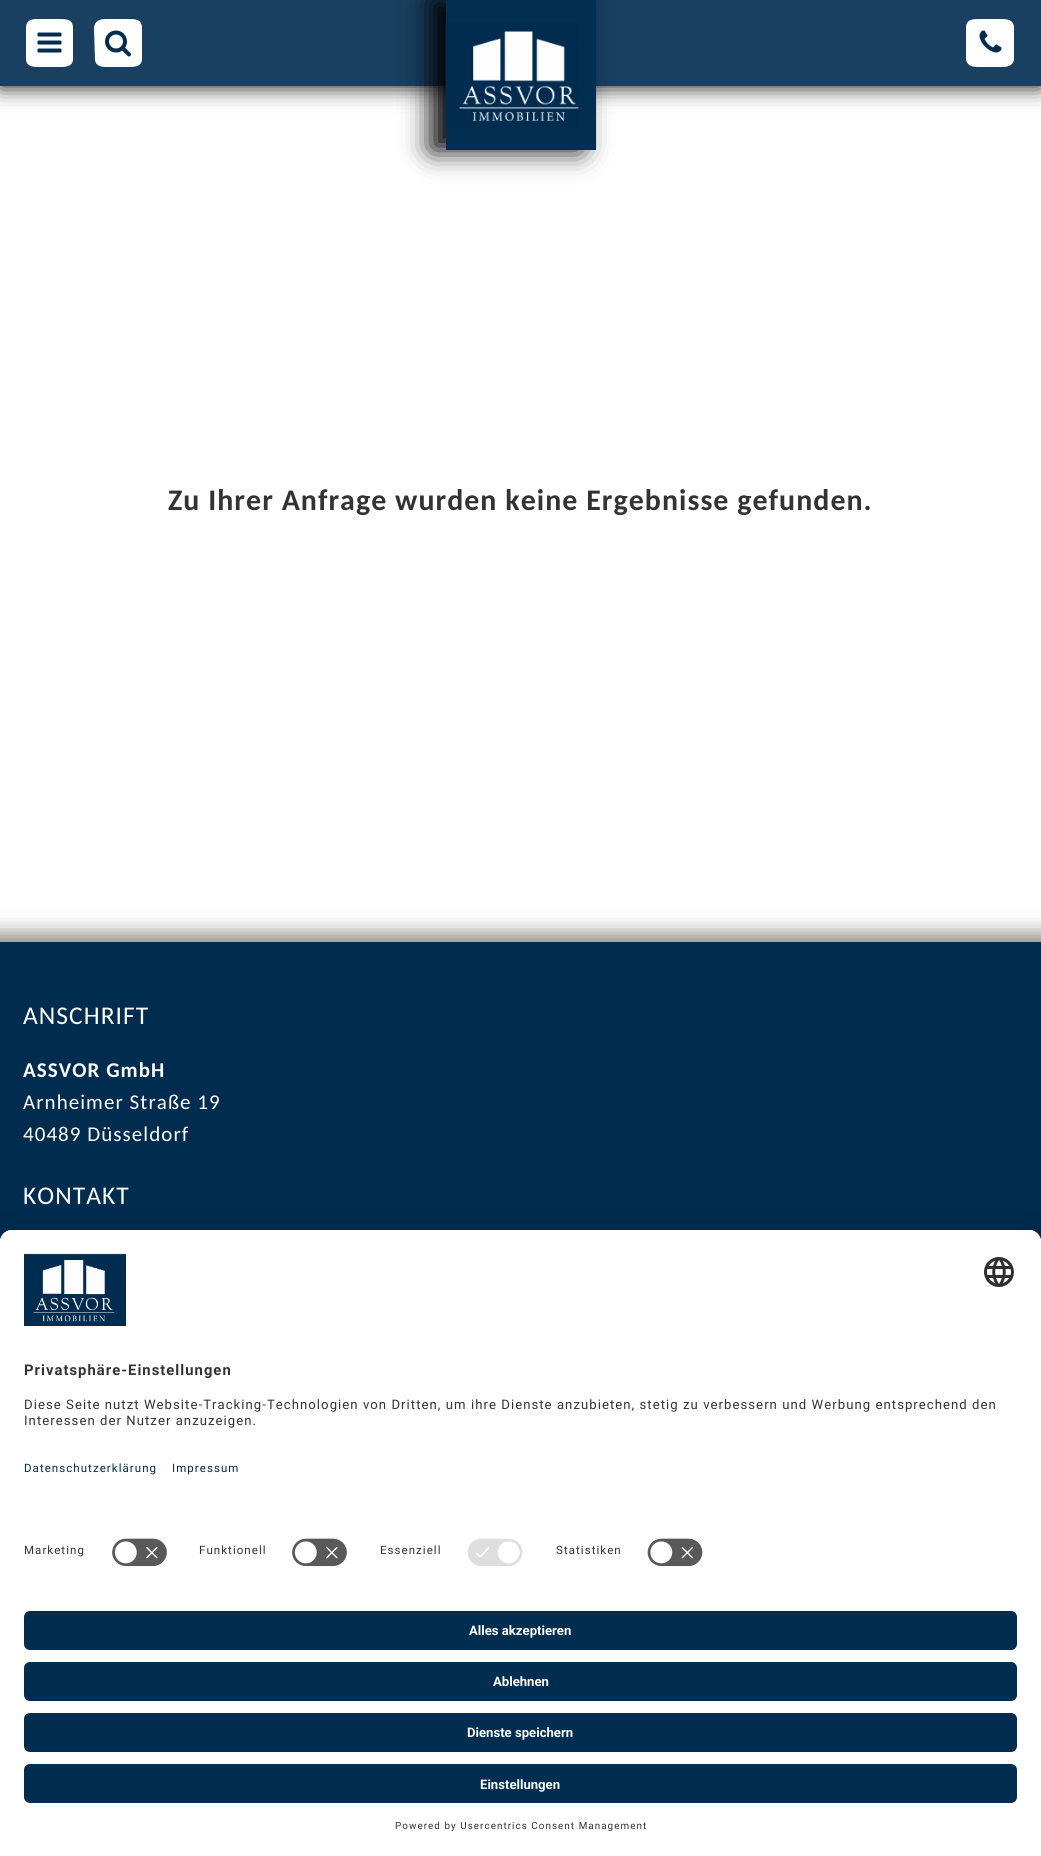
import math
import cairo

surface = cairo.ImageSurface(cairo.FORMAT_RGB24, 1041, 1856)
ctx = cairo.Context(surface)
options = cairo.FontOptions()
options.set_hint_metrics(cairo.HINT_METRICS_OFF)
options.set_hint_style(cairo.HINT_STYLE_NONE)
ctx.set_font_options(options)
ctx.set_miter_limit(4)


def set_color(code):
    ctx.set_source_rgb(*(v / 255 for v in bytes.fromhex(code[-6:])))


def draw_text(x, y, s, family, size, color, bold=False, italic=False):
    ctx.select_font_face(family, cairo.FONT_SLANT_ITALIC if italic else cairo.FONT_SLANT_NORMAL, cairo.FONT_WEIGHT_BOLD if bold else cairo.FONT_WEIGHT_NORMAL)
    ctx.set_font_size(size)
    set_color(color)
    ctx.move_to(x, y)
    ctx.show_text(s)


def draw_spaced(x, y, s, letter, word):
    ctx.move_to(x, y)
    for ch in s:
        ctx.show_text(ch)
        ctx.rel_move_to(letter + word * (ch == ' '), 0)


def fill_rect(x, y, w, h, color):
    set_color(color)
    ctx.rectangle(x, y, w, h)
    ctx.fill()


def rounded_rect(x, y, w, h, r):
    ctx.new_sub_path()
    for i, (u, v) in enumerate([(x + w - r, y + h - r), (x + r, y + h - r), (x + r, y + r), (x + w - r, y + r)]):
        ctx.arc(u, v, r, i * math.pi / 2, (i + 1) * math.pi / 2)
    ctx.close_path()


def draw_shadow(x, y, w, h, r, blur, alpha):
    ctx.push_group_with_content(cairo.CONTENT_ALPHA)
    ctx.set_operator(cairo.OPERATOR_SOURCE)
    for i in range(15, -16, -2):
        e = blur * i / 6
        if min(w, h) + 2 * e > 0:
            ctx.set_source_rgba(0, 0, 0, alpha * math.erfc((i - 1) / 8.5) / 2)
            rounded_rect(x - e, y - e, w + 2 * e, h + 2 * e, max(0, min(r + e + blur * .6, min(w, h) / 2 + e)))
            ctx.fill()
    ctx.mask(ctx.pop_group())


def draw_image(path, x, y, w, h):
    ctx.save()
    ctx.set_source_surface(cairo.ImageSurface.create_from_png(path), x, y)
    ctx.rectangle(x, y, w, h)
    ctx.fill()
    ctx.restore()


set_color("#ffffff")
ctx.paint()
ctx.save()
ctx.set_fill_rule(cairo.FILL_RULE_EVEN_ODD)
ctx.new_path()
ctx.move_to(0, 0)
ctx.line_to(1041, 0)
ctx.line_to(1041, 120)
ctx.line_to(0, 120)
ctx.close_path()
ctx.move_to(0, 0)
ctx.line_to(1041, 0)
ctx.line_to(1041, 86)
ctx.line_to(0, 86)
ctx.close_path()
ctx.clip()
set_color("#000000")
draw_shadow(0, 0, 1041, 86, 0, 11, 1)
ctx.restore()
ctx.set_source_rgba(0, 0.173, 0.314, 0.9)
ctx.rectangle(0, 0, 1041, 86)
ctx.fill()
set_color("#ffffff")
ctx.new_path()
ctx.move_to(73, 28)
ctx.line_to(73, 60)
ctx.curve_to(72, 67, 65, 67, 59, 67)
ctx.line_to(39, 67)
ctx.curve_to(34, 67, 27, 67, 26, 60)
ctx.line_to(26, 28)
ctx.curve_to(26, 19, 33, 19, 39, 19)
ctx.line_to(59, 19)
ctx.curve_to(66, 19, 73, 19, 73, 28)
ctx.close_path()
ctx.fill()
draw_image("assets/img1.png", 37, 32, 25, 21)
ctx.new_path()
ctx.move_to(142, 28)
ctx.line_to(142, 60)
ctx.curve_to(141, 67, 134, 67, 128, 67)
ctx.line_to(108, 67)
ctx.curve_to(103, 67, 96, 67, 95, 60)
ctx.line_to(94, 28)
ctx.curve_to(95, 19, 102, 19, 108, 19)
ctx.line_to(128, 19)
ctx.curve_to(135, 19, 142, 19, 142, 28)
ctx.close_path()
ctx.fill()
draw_image("assets/img2.png", 105, 30, 26, 27)
set_color("#000000")
draw_shadow(431, 0, 150, 150, 0, 14, 1)
fill_rect(446, 0, 150, 150, "#022e52")
draw_image("assets/img3.png", 445, 22, 134, 106)
set_color("#ffffff")
ctx.new_path()
ctx.move_to(1014, 28)
ctx.line_to(1014, 60)
ctx.curve_to(1012, 67, 1006, 67, 1000, 67)
ctx.line_to(980, 67)
ctx.curve_to(974, 67, 968, 67, 966, 60)
ctx.line_to(966, 28)
ctx.curve_to(966, 19, 973, 19, 980, 19)
ctx.line_to(1000, 19)
ctx.curve_to(1006, 19, 1014, 19, 1014, 28)
ctx.close_path()
ctx.fill()
draw_image("assets/img4.png", 979, 30, 23, 23)
ctx.select_font_face("Carlito", cairo.FONT_SLANT_NORMAL, cairo.FONT_WEIGHT_BOLD)
ctx.set_font_size(29.9)
set_color("#333333")
draw_spaced(168, 510, "Zu Ihrer Anfrage wurden keine Ergebnisse gefunden.", 1.05, 0)
set_color("#1d1d1b")
draw_shadow(-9, 933, 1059, 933, 0, 10, 0.5)
fill_rect(0, 942, 1041, 300, "#002c50")
ctx.select_font_face("Carlito")
ctx.set_font_size(25.5)
set_color("#ffffff")
draw_spaced(23, 1024, "ANSCHRIFT", 1.05, 0)
ctx.select_font_face("Carlito", cairo.FONT_SLANT_NORMAL, cairo.FONT_WEIGHT_BOLD)
ctx.set_font_size(21)
draw_spaced(23, 1077, "ASSVOR GmbH", 1.05, 0)
ctx.select_font_face("Carlito")
draw_spaced(23, 1109, "Arnheimer Straße 19", 1.05, 0)
draw_spaced(23, 1141, "40489 Düsseldorf", 1.05, 0)
ctx.set_font_size(25.5)
draw_spaced(23, 1204, "KONTAKT", 1.05, 0)
set_color("#000000")
draw_shadow(0, 1260, 1041, 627, 12, 21, 0.3)
draw_shadow(0, 1238, 1041, 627, 12, 19.5, 0.22)
set_color("#ffffff")
ctx.new_path()
ctx.move_to(12, 1230)
ctx.line_to(1029, 1230)
ctx.curve_to(1035.5, 1230, 1041, 1235.5, 1041, 1242)
ctx.line_to(1041, 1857)
ctx.line_to(0, 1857)
ctx.line_to(0, 1242)
ctx.curve_to(0, 1235.5, 5.5, 1230, 12, 1230)
ctx.close_path()
ctx.fill()
ctx.new_path()
ctx.move_to(12, 1230)
ctx.line_to(1029, 1230)
ctx.curve_to(1035.5, 1230, 1041, 1235.5, 1041, 1242)
ctx.line_to(1041, 1593)
ctx.line_to(0, 1593)
ctx.line_to(0, 1242)
ctx.curve_to(0, 1235.5, 5.5, 1230, 12, 1230)
ctx.close_path()
ctx.fill()
ctx.new_path()
ctx.move_to(12, 1230)
ctx.line_to(1029, 1230)
ctx.curve_to(1035.5, 1230, 1041, 1235.5, 1041, 1242)
ctx.line_to(1041, 1527)
ctx.line_to(0, 1527)
ctx.line_to(0, 1242)
ctx.curve_to(0, 1235.5, 5.5, 1230, 12, 1230)
ctx.close_path()
ctx.fill()
draw_image("assets/img5.png", 24, 1253, 102, 73)
draw_image("assets/img6.png", 984, 1257, 30, 30)
ctx.select_font_face("Roboto", cairo.FONT_SLANT_NORMAL, cairo.FONT_WEIGHT_BOLD)
ctx.set_font_size(14.75)
set_color("#333333")
draw_spaced(24, 1375, "Privatsphäre-Einstellungen", 1.05, 0)
ctx.select_font_face("Roboto")
ctx.set_font_size(13.12)
draw_spaced(24, 1409, "Diese Seite nutzt Website-Tracking-Technologien von Dritten, um ihre Dienste anzubieten, stetig zu verbessern und Werbung entsprechend den", 1.05, 0)
draw_spaced(24, 1425, "Interessen der Nutzer anzuzeigen.", 1.05, 0)
ctx.set_font_size(11.5)
set_color("#002d50")
draw_spaced(24, 1472, "Datenschutzerklärung", 1.05, 0)
draw_spaced(172, 1472, "Impressum", 1.05, 0)
set_color("#333333")
draw_spaced(24, 1554, "Marketing", 1.05, 0)
draw_image("assets/img7.png", 112, 1538, 55, 29)
draw_spaced(199, 1554, "Funktionell", 1.05, 0)
draw_image("assets/img7.png", 292, 1538, 55, 29)
draw_spaced(380, 1554, "Essenziell", 1.05, 0)
draw_image("assets/img8.png", 467, 1538, 56, 28)
draw_spaced(556, 1554, "Statistiken", 1.05, 0)
draw_image("assets/img9.png", 647, 1538, 56, 29)
set_color("#002d50")
rounded_rect(24, 1611, 993, 39, 6)
ctx.fill()
draw_text(469, 1635, "Alles akzeptieren", "Roboto", 13.12, "#ffffff", bold=True)
set_color("#002d50")
rounded_rect(24, 1662, 993, 39, 6)
ctx.fill()
draw_text(493, 1686, "Ablehnen", "Roboto", 13.12, "#ffffff", bold=True)
set_color("#002d50")
rounded_rect(24, 1713, 993, 39, 6)
ctx.fill()
draw_text(467, 1737, "Dienste speichern", "Roboto", 13.12, "#ffffff", bold=True)
set_color("#002d50")
rounded_rect(24, 1764, 993, 39, 6)
ctx.fill()
draw_text(480, 1789, "Einstellungen", "Roboto", 13.12, "#ffffff", bold=True)
ctx.select_font_face("Roboto")
ctx.set_font_size(9.85)
set_color("#333333")
draw_spaced(395, 1829, "Powered by Usercentrics Consent Management", 1.05, 0)
surface.write_to_png("output.png")
